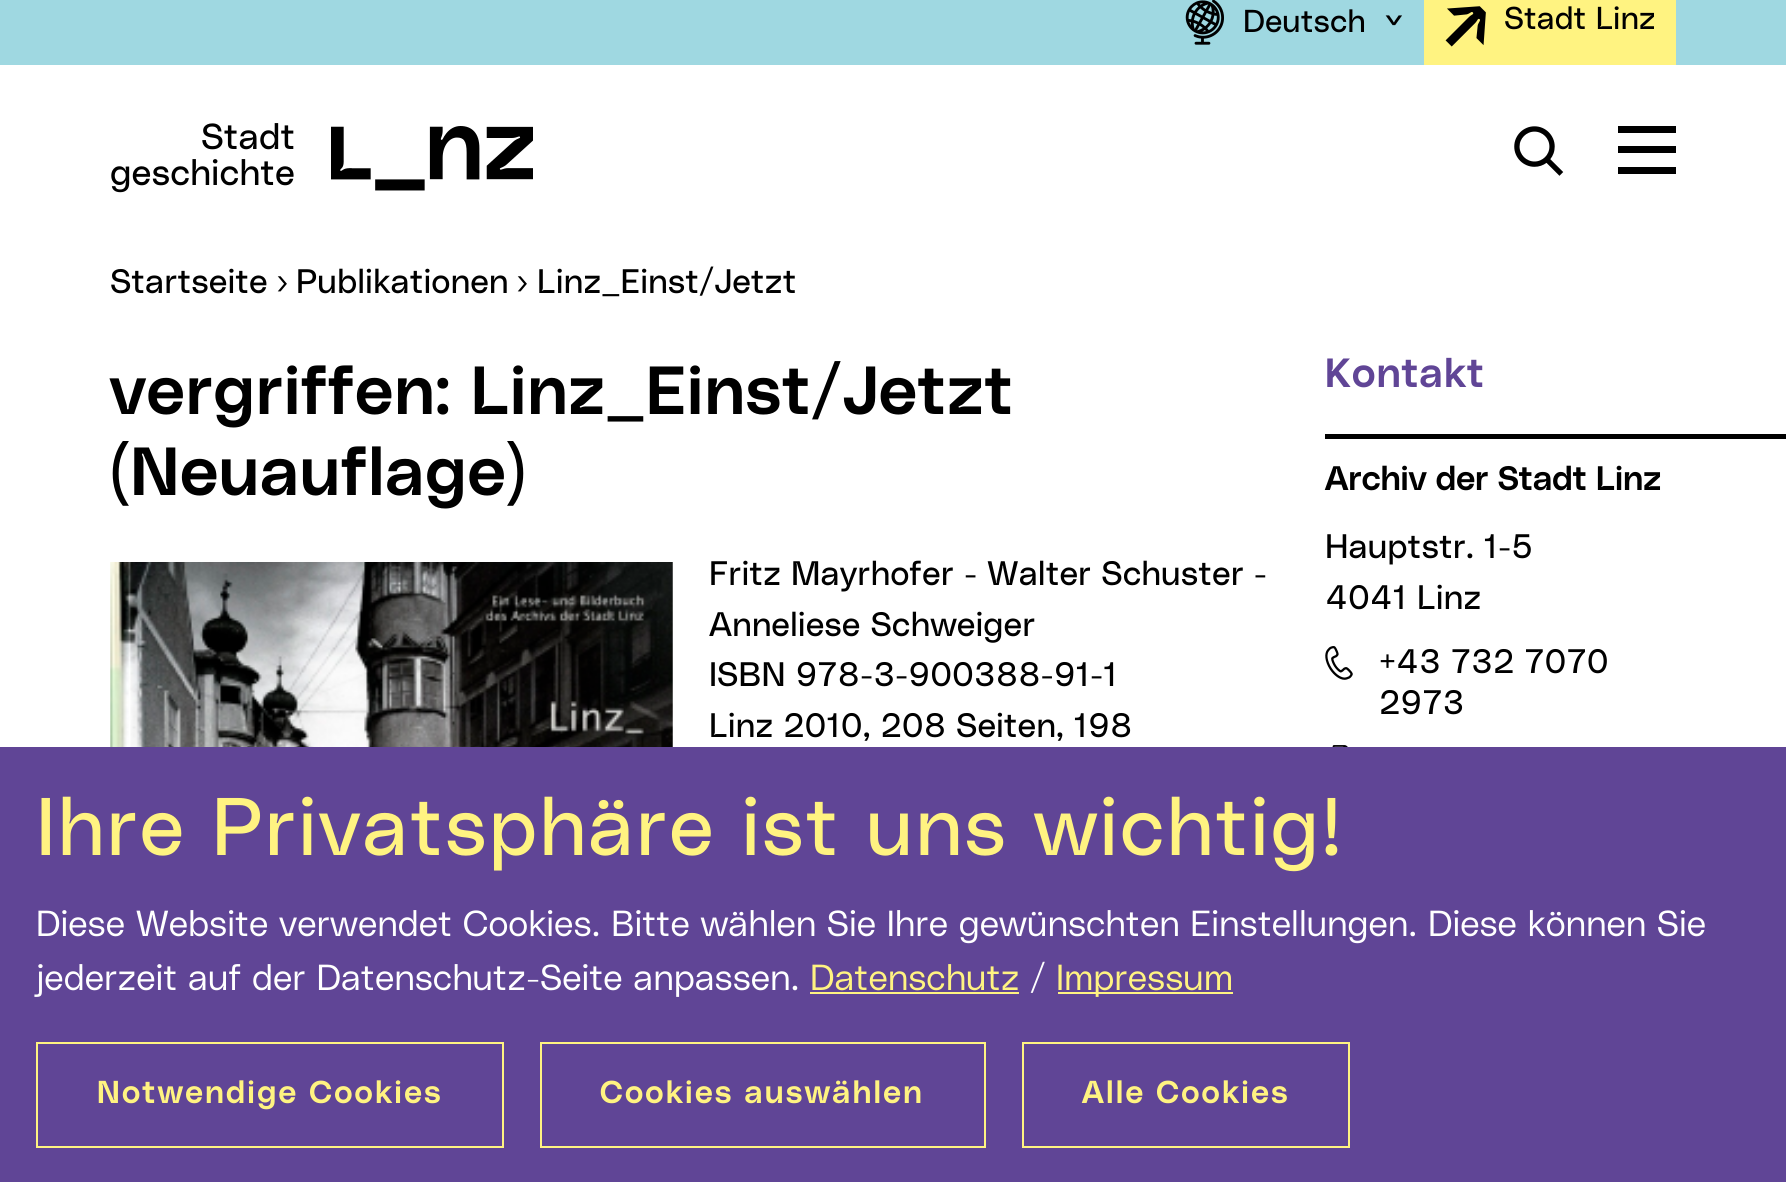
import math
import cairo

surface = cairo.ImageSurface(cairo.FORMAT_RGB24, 1786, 1182)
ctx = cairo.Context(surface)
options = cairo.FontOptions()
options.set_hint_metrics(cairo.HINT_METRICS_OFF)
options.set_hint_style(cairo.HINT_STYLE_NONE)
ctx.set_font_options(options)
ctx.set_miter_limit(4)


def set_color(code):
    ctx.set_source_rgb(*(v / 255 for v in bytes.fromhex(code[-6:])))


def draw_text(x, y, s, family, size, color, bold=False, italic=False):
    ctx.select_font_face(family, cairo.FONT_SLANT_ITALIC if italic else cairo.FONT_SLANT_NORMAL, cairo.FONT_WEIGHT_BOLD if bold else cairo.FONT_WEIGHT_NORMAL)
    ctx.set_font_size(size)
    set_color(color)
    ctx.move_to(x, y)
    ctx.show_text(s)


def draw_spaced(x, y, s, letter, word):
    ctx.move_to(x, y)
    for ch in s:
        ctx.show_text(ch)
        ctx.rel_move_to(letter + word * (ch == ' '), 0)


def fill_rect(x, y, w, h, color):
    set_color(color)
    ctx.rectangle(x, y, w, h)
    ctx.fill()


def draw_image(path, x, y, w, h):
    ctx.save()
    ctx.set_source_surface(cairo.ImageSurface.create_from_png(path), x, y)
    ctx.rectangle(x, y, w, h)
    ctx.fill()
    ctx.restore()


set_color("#ffffff")
ctx.paint()
fill_rect(0, 0, 1786, 65, "#9fd8e1")
draw_image("assets/img1.png", 1185, 0, 39, 45)
draw_text(1243, 32, "Deutsch", "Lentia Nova", 31.5, "#000000")
draw_image("assets/img2.png", 1385, 15, 17, 11)
fill_rect(1424, 0, 252, 65, "#fff381")
draw_image("assets/img3.png", 1445, 6, 41, 41)
draw_text(1504, 29, "Stadt Linz", "Lentia Nova", 31.5, "#000000")
draw_text(201, 149, "Stadt", "Lentia Nova", 36, "#000000")
draw_text(110, 185, "geschichte", "Lentia Nova", 36, "#000000")
draw_image("assets/img4.png", 331, 126, 202, 65)
draw_image("assets/img5.png", 1514, 126, 50, 50)
fill_rect(1618, 126, 58, 7, "#000000")
fill_rect(1618, 146, 58, 7, "#000000")
fill_rect(1618, 167, 58, 7, "#000000")
draw_text(110, 293, "Startseite", "Lentia Nova", 33.75, "#000000")
draw_text(276, 293, "›", "Lentia Nova", 33.75, "#000000")
draw_text(296, 293, "Publikationen", "Lentia Nova", 33.75, "#000000")
draw_text(516, 293, "›", "Lentia Nova", 33.75, "#000000")
draw_text(537, 293, "Linz_Einst/Jetzt", "Lentia Nova", 33.75, "#000000")
ctx.select_font_face("Lentia Nova SemiBold")
ctx.set_font_size(67.5)
draw_spaced(110, 414, "vergriffen: Linz_Einst/Jetzt", 1.1, 0)
draw_spaced(110, 495, "(Neuauflage)", 1.1, 0)
draw_image("assets/img6.png", 110, 562, 563, 185)
draw_text(709, 585, "Fritz Mayrhofer - Walter Schuster -", "Lentia Nova", 33.75, "#000000")
draw_text(709, 636, "Anneliese Schweiger", "Lentia Nova", 33.75, "#000000")
draw_text(709, 686, "ISBN 978-3-900388-91-1", "Lentia Nova", 33.75, "#000000")
draw_text(709, 737, "Linz 2010, 208 Seiten, 198", "Lentia Nova", 33.75, "#000000")
ctx.select_font_face("Lentia Nova SemiBold")
ctx.set_font_size(40.5)
set_color("#604596")
draw_spaced(1325, 387, "Kontakt", 1.1, 0)
fill_rect(1325, 434, 461, 5, "#000000")
draw_text(1325, 490, "Archiv der Stadt Linz", "Lentia Nova SemiBold", 33.75, "#000000")
draw_text(1325, 558, "Hauptstr. 1-5", "Lentia Nova", 33.75, "#000000")
draw_text(1325, 609, "4041 Linz", "Lentia Nova", 33.75, "#000000")
draw_image("assets/img7.png", 1325, 646, 28, 34)
draw_text(1379, 673, "+43 732 7070", "Lentia Nova", 33.75, "#000000")
draw_text(1379, 714, "2973", "Lentia Nova", 33.75, "#000000")
draw_image("assets/img8.png", 1332, 745, 16, 2)
fill_rect(0, 747, 1786, 435, "#604596")
ctx.set_font_size(81)
set_color("#fff381")
draw_spaced(36, 855, "Ihre Privatsphäre ist uns wichtig!", 1.7, 0)
draw_text(36, 936, "Diese Website verwendet Cookies. Bitte wählen Sie Ihre gewünschten Einstellungen. Diese können Sie", "Lentia Nova Light", 36, "#ffffff")
draw_text(36, 990, "jederzeit auf der Datenschutz-Seite anpassen.", "Lentia Nova Light", 36, "#ffffff")
draw_text(810, 990, "Datenschutz", "Lentia Nova Light", 36, "#fff381")
fill_rect(810, 992, 209, 2, "#fff381")
draw_text(1030, 990, "/", "Lentia Nova Light", 36, "#ffffff")
fill_rect(1058, 992, 175, 2, "#fff381")
draw_text(1056, 990, "Impressum", "Lentia Nova Light", 36, "#fff381")
ctx.rectangle(37, 1043, 466, 104)
ctx.stroke()
ctx.select_font_face("Lentia Nova SemiBold")
ctx.set_font_size(31.5)
draw_spaced(97, 1103, "Notwendige Cookies", 2.25, 0)
ctx.rectangle(541, 1043, 444, 104)
ctx.stroke()
draw_spaced(600, 1103, "Cookies auswählen", 2.25, 0)
ctx.rectangle(1023, 1043, 326, 104)
ctx.stroke()
draw_spaced(1082, 1103, "Alle Cookies", 2.25, 0)
surface.write_to_png("output.png")
